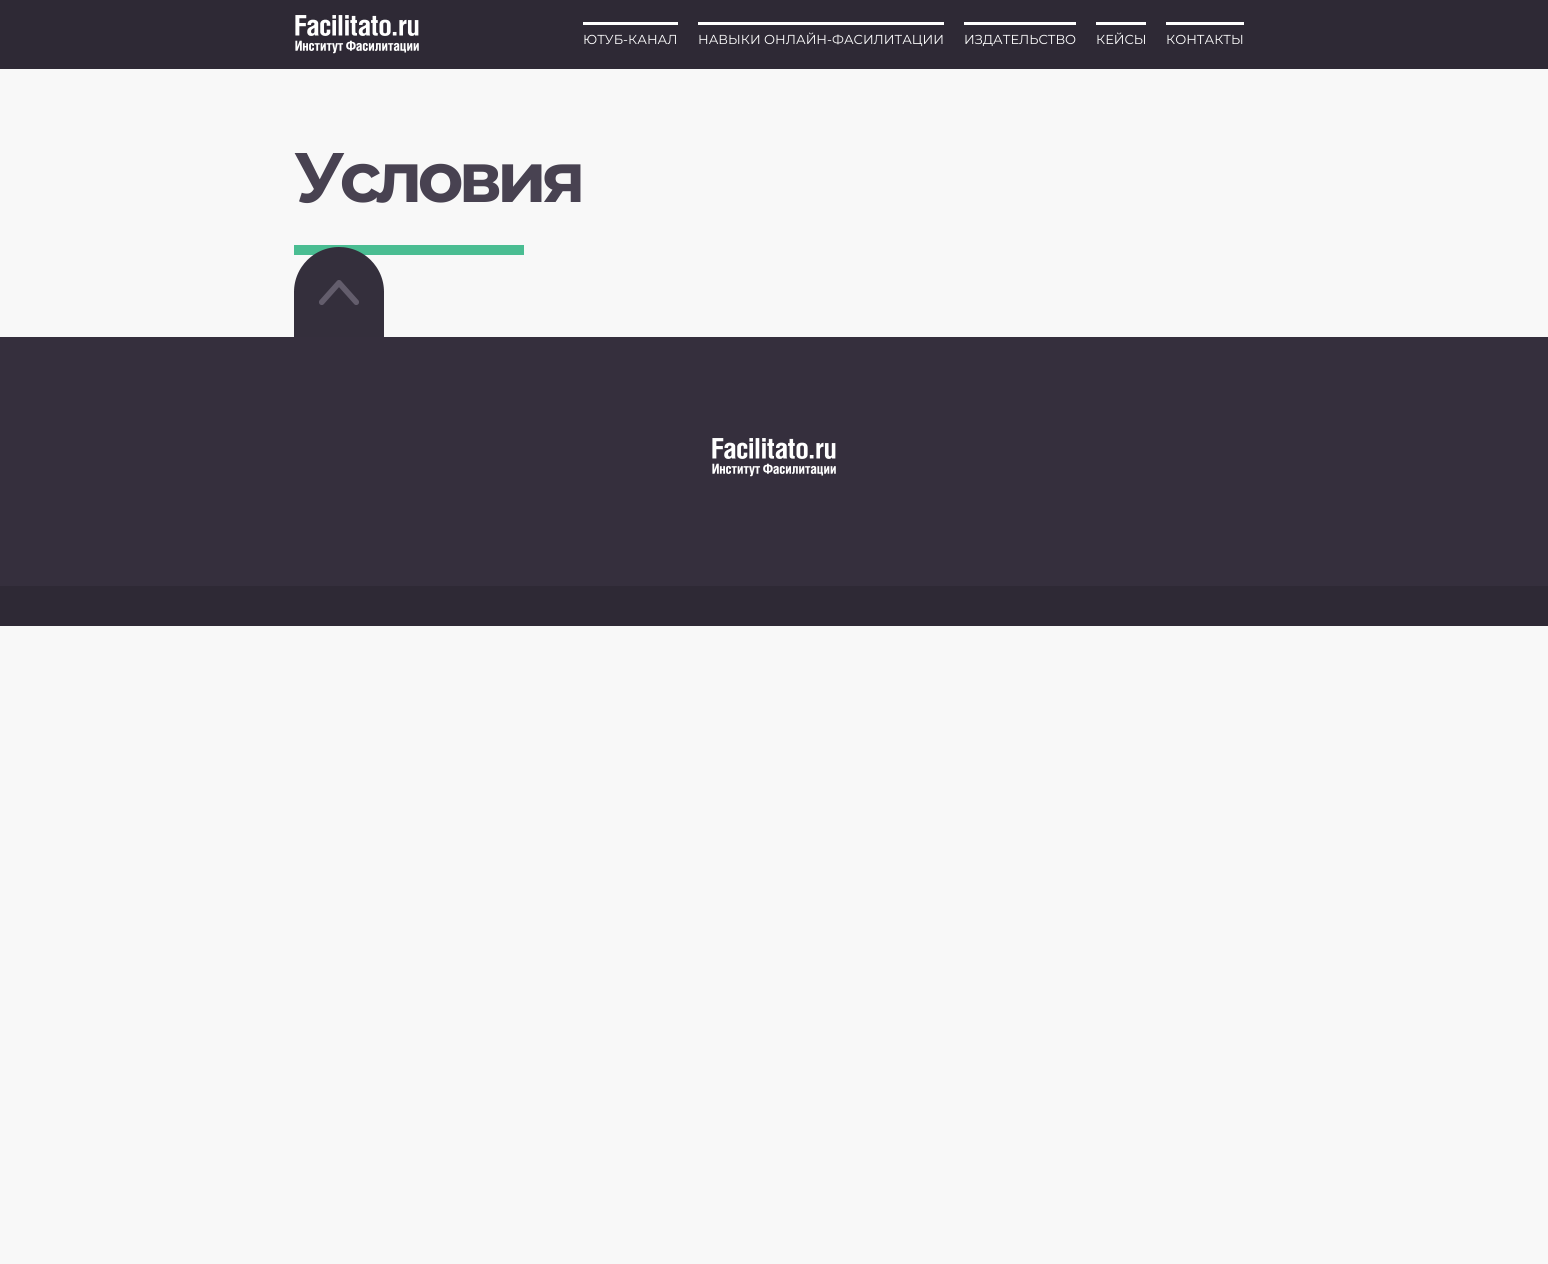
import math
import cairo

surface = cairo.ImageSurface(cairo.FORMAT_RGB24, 1548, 1264)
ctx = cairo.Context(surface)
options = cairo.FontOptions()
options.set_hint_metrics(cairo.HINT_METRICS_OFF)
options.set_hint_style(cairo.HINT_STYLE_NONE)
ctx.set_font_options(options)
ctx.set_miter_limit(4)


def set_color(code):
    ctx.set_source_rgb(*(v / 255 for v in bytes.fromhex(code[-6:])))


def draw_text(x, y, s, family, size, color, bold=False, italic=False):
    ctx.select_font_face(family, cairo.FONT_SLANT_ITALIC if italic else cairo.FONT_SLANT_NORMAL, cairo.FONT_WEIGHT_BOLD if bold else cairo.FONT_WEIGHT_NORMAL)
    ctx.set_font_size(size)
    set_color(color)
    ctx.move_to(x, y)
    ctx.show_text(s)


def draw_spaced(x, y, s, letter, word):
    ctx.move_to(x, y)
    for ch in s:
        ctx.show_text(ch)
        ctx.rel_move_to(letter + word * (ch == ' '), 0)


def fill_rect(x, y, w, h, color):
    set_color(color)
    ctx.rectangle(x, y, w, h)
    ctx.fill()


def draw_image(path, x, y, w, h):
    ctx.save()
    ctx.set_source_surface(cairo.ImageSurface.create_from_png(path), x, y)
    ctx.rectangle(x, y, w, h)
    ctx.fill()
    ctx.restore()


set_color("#f8f8f8")
ctx.paint()
fill_rect(0, 0, 1548, 69, "#2e2935")
draw_image("assets/img1.png", 295, 15, 124, 39)
fill_rect(583, 22, 95, 3, "#ffffff")
draw_text(583, 44, "ЮТУБ-КАНАЛ", "Montserrat", 13, "#ffffff")
fill_rect(698, 22, 246, 3, "#ffffff")
draw_text(698, 44, "НАВЫКИ ОНЛАЙН-ФАСИЛИТАЦИИ", "Montserrat", 13, "#ffffff")
fill_rect(964, 22, 112, 3, "#ffffff")
draw_text(964, 44, "ИЗДАТЕЛЬСТВО", "Montserrat", 13, "#ffffff")
fill_rect(1096, 22, 50, 3, "#ffffff")
draw_text(1096, 44, "КЕЙСЫ", "Montserrat", 13, "#ffffff")
fill_rect(1166, 22, 78, 3, "#ffffff")
draw_text(1166, 44, "КОНТАКТЫ", "Montserrat", 13, "#ffffff")
ctx.select_font_face("Montserrat", cairo.FONT_SLANT_NORMAL, cairo.FONT_WEIGHT_BOLD)
ctx.set_font_size(70)
set_color("#484251")
draw_spaced(294, 202, "Условия", -5, 0)
fill_rect(294, 245, 230, 10, "#4abd92")
fill_rect(0, 337, 1548, 249, "#352f3d")
draw_image("assets/img2.png", 294, 247, 90, 90)
draw_image("assets/img3.png", 712, 438, 124, 39)
fill_rect(0, 586, 1548, 40, "#2e2935")
surface.write_to_png("output.png")
